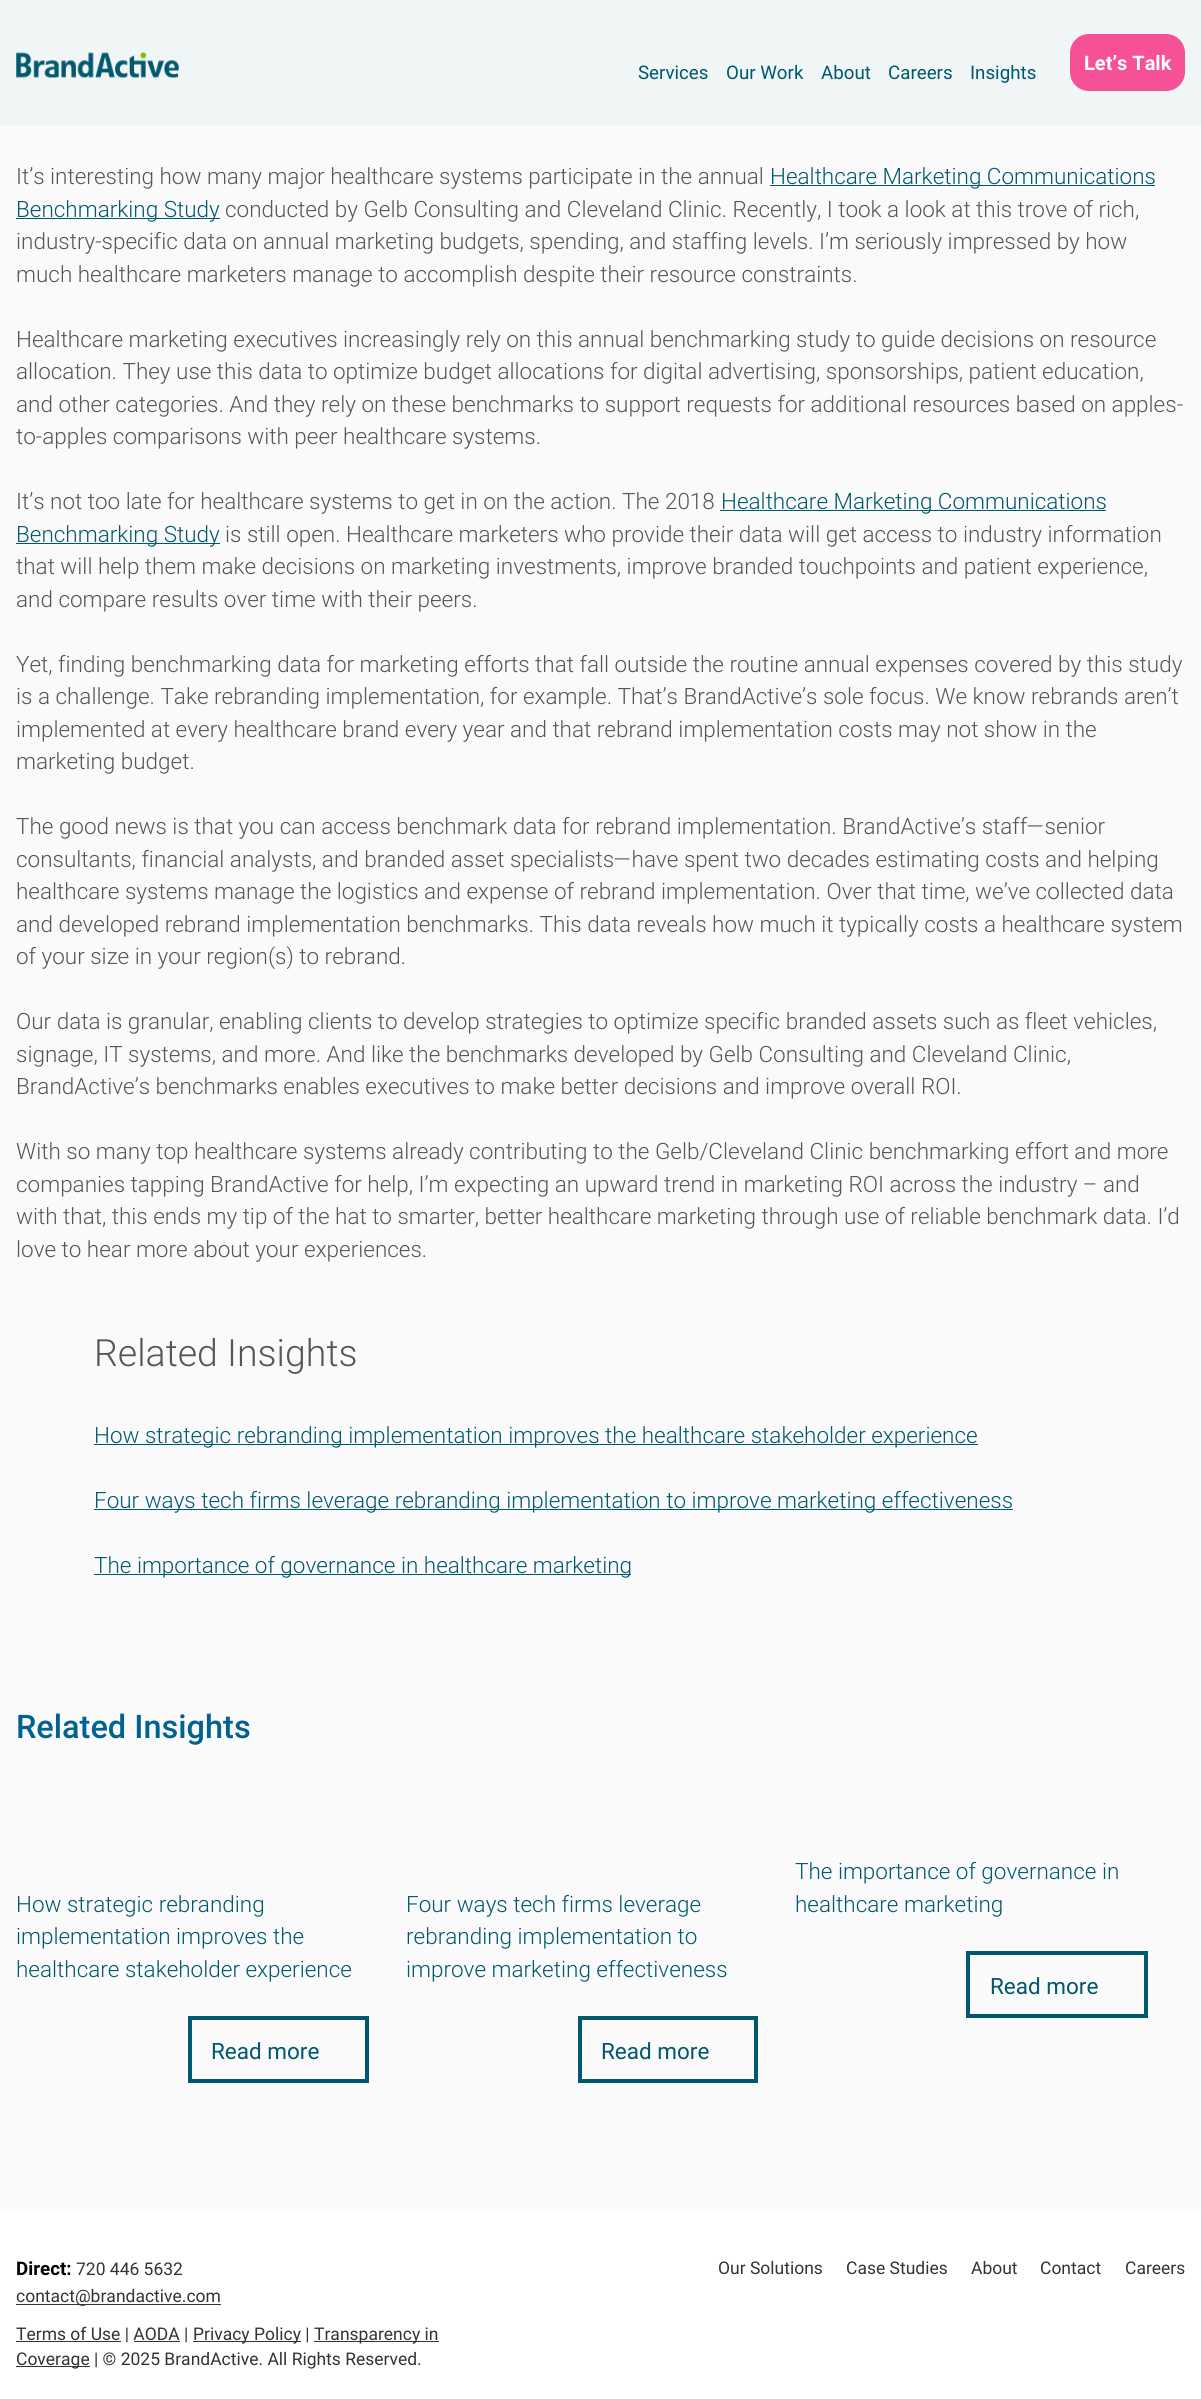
import math
import cairo

surface = cairo.ImageSurface(cairo.FORMAT_RGB24, 1201, 2399)
ctx = cairo.Context(surface)
options = cairo.FontOptions()
options.set_hint_metrics(cairo.HINT_METRICS_OFF)
options.set_hint_style(cairo.HINT_STYLE_NONE)
ctx.set_font_options(options)
ctx.set_miter_limit(4)


def set_color(code):
    ctx.set_source_rgb(*(v / 255 for v in bytes.fromhex(code[-6:])))


def draw_text(x, y, s, family, size, color, bold=False, italic=False):
    ctx.select_font_face(family, cairo.FONT_SLANT_ITALIC if italic else cairo.FONT_SLANT_NORMAL, cairo.FONT_WEIGHT_BOLD if bold else cairo.FONT_WEIGHT_NORMAL)
    ctx.set_font_size(size)
    set_color(color)
    ctx.move_to(x, y)
    ctx.show_text(s)


def fill_rect(x, y, w, h, color):
    set_color(color)
    ctx.rectangle(x, y, w, h)
    ctx.fill()


def rounded_rect(x, y, w, h, r):
    ctx.new_sub_path()
    for i, (u, v) in enumerate([(x + w - r, y + h - r), (x + r, y + h - r), (x + r, y + r), (x + w - r, y + r)]):
        ctx.arc(u, v, r, i * math.pi / 2, (i + 1) * math.pi / 2)
    ctx.close_path()


def draw_image(path, x, y, w, h):
    ctx.save()
    ctx.set_source_surface(cairo.ImageSurface.create_from_png(path), x, y)
    ctx.rectangle(x, y, w, h)
    ctx.fill()
    ctx.restore()


set_color("#fafafa")
ctx.paint()
fill_rect(0, 0, 1201, 125, "#f0f5f6")
draw_image("assets/img1.png", 16, 52, 163, 26)
draw_text(638, 79, "Services", "Roboto", 18.75, "#00586f")
draw_text(726, 79, "Our Work", "Roboto", 18.75, "#00586f")
draw_text(821, 79, "About", "Roboto", 18.75, "#00586f")
draw_text(888, 79, "Careers", "Roboto", 18.75, "#00586f")
draw_text(970, 79, "Insights", "Roboto", 18.75, "#00586f")
set_color("#f65097")
rounded_rect(1070, 34, 115, 57, 19)
ctx.fill()
draw_text(1084, 70, "Let’s Talk", "Roboto", 20, "#ffffff", bold=True)
draw_text(16, 184, "It’s interesting how many major healthcare systems participate in the annual", "Roboto Light", 22.5, "#55565a")
fill_rect(770, 185, 385, 1, "#00586f")
draw_text(770, 184, "Healthcare Marketing Communications", "Roboto Light", 22.5, "#00586f")
fill_rect(16, 218, 204, 1, "#00586f")
draw_text(16, 217, "Benchmarking Study", "Roboto Light", 22.5, "#00586f")
draw_text(225, 217, "conducted by Gelb Consulting and Cleveland Clinic. Recently, I took a look at this trove of rich,", "Roboto Light", 22.5, "#55565a")
draw_text(16, 249, "industry-specific data on annual marketing budgets, spending, and staffing levels. I’m seriously impressed by how", "Roboto Light", 22.5, "#55565a")
draw_text(16, 282, "much healthcare marketers manage to accomplish despite their resource constraints.", "Roboto Light", 22.5, "#55565a")
draw_text(16, 347, "Healthcare marketing executives increasingly rely on this annual benchmarking study to guide decisions on resource", "Roboto Light", 22.5, "#55565a")
draw_text(16, 379, "allocation. They use this data to optimize budget allocations for digital advertising, sponsorships, patient education,", "Roboto Light", 22.5, "#55565a")
draw_text(16, 412, "and other categories. And they rely on these benchmarks to support requests for additional resources based on apples-", "Roboto Light", 22.5, "#55565a")
draw_text(16, 444, "to-apples comparisons with peer healthcare systems.", "Roboto Light", 22.5, "#55565a")
draw_text(16, 509, "It’s not too late for healthcare systems to get in on the action. The 2018", "Roboto Light", 22.5, "#55565a")
fill_rect(720, 510, 386, 1, "#00586f")
draw_text(721, 509, "Healthcare Marketing Communications", "Roboto Light", 22.5, "#00586f")
fill_rect(16, 543, 204, 1, "#00586f")
draw_text(16, 542, "Benchmarking Study", "Roboto Light", 22.5, "#00586f")
draw_text(225, 542, "is still open. Healthcare marketers who provide their data will get access to industry information", "Roboto Light", 22.5, "#55565a")
draw_text(16, 574, "that will help them make decisions on marketing investments, improve branded touchpoints and patient experience,", "Roboto Light", 22.5, "#55565a")
draw_text(16, 607, "and compare results over time with their peers.", "Roboto Light", 22.5, "#55565a")
draw_text(16, 672, "Yet, finding benchmarking data for marketing efforts that fall outside the routine annual expenses covered by this study", "Roboto Light", 22.5, "#55565a")
draw_text(16, 704, "is a challenge. Take rebranding implementation, for example. That’s BrandActive’s sole focus. We know rebrands aren’t", "Roboto Light", 22.5, "#55565a")
draw_text(16, 737, "implemented at every healthcare brand every year and that rebrand implementation costs may not show in the", "Roboto Light", 22.5, "#55565a")
draw_text(16, 769, "marketing budget.", "Roboto Light", 22.5, "#55565a")
draw_text(16, 834, "The good news is that you can access benchmark data for rebrand implementation. BrandActive’s staff—senior", "Roboto Light", 22.5, "#55565a")
draw_text(16, 867, "consultants, financial analysts, and branded asset specialists—have spent two decades estimating costs and helping", "Roboto Light", 22.5, "#55565a")
draw_text(16, 899, "healthcare systems manage the logistics and expense of rebrand implementation. Over that time, we’ve collected data", "Roboto Light", 22.5, "#55565a")
draw_text(16, 932, "and developed rebrand implementation benchmarks. This data reveals how much it typically costs a healthcare system", "Roboto Light", 22.5, "#55565a")
draw_text(16, 964, "of your size in your region(s) to rebrand.", "Roboto Light", 22.5, "#55565a")
draw_text(16, 1029, "Our data is granular, enabling clients to develop strategies to optimize specific branded assets such as fleet vehicles,", "Roboto Light", 22.5, "#55565a")
draw_text(16, 1062, "signage, IT systems, and more. And like the benchmarks developed by Gelb Consulting and Cleveland Clinic,", "Roboto Light", 22.5, "#55565a")
draw_text(16, 1094, "BrandActive’s benchmarks enables executives to make better decisions and improve overall ROI.", "Roboto Light", 22.5, "#55565a")
draw_text(16, 1159, "With so many top healthcare systems already contributing to the Gelb/Cleveland Clinic benchmarking effort and more", "Roboto Light", 22.5, "#55565a")
draw_text(16, 1192, "companies tapping BrandActive for help, I’m expecting an upward trend in marketing ROI across the industry – and", "Roboto Light", 22.5, "#55565a")
draw_text(16, 1224, "with that, this ends my tip of the hat to smarter, better healthcare marketing through use of reliable benchmark data. I’d", "Roboto Light", 22.5, "#55565a")
draw_text(16, 1257, "love to hear more about your experiences.", "Roboto Light", 22.5, "#55565a")
draw_text(94, 1366, "Related Insights", "Roboto Light", 37.5, "#55565a")
fill_rect(94, 1444, 884, 1, "#00586f")
draw_text(94, 1443, "How strategic rebranding implementation improves the healthcare stakeholder experience", "Roboto Light", 22.5, "#00586f")
fill_rect(94, 1509, 919, 1, "#00586f")
draw_text(94, 1508, "Four ways tech firms leverage rebranding implementation to improve marketing effectiveness", "Roboto Light", 22.5, "#00586f")
fill_rect(94, 1574, 537, 1, "#00586f")
draw_text(94, 1573, "The importance of governance in healthcare marketing", "Roboto Light", 22.5, "#00586f")
draw_text(16, 1738, "Related Insights", "Roboto Medium", 32.5, "#006293")
draw_text(16, 1912, "How strategic rebranding", "Roboto Light", 22.5, "#00586f")
draw_text(16, 1944, "implementation improves the", "Roboto Light", 22.5, "#00586f")
draw_text(16, 1977, "healthcare stakeholder experience", "Roboto Light", 22.5, "#00586f")
ctx.rectangle(190, 2018, 177, 63)
ctx.set_line_width(4)
ctx.stroke()
draw_text(211, 2059, "Read more", "Roboto", 22.5, "#00586f")
draw_text(406, 1912, "Four ways tech firms leverage", "Roboto Light", 22.5, "#00586f")
draw_text(406, 1944, "rebranding implementation to", "Roboto Light", 22.5, "#00586f")
draw_text(406, 1977, "improve marketing effectiveness", "Roboto Light", 22.5, "#00586f")
ctx.rectangle(580, 2018, 176, 63)
ctx.stroke()
draw_text(601, 2059, "Read more", "Roboto", 22.5, "#00586f")
draw_text(795, 1879, "The importance of governance in", "Roboto Light", 22.5, "#00586f")
draw_text(795, 1912, "healthcare marketing", "Roboto Light", 22.5, "#00586f")
ctx.rectangle(968, 1953, 178, 63)
ctx.stroke()
draw_text(990, 1994, "Read more", "Roboto", 22.5, "#00586f")
fill_rect(0, 2211, 1201, 188, "#ffffff")
draw_text(16, 2275, "Direct:", "Roboto", 18.75, "#000000", bold=True)
draw_text(76, 2275, "720 446 5632", "Roboto", 17.5, "#333333")
fill_rect(16, 2304, 205, 1, "#333333")
draw_text(16, 2302, "contact@brandactive.com", "Roboto", 17.5, "#333333")
fill_rect(16, 2341, 105, 1, "#333333")
draw_text(16, 2340, "Terms of Use | AODA |", "Roboto", 17.5, "#333333")
fill_rect(193, 2341, 108, 1, "#333333")
draw_text(193, 2340, "Privacy Policy |", "Roboto", 17.5, "#333333")
fill_rect(314, 2341, 125, 1, "#333333")
draw_text(314, 2340, "Transparency in", "Roboto", 17.5, "#333333")
fill_rect(134, 2341, 46, 1, "#333333")
fill_rect(16, 2366, 74, 1, "#333333")
draw_text(16, 2365, "Coverage | © 2025 BrandActive. All Rights Reserved.", "Roboto", 17.5, "#333333")
draw_text(718, 2274, "Our Solutions", "Roboto", 17.5, "#333333")
draw_text(846, 2274, "Case Studies", "Roboto", 17.5, "#333333")
draw_text(971, 2274, "About", "Roboto", 17.5, "#333333")
draw_text(1040, 2274, "Contact", "Roboto", 17.5, "#333333")
draw_text(1125, 2274, "Careers", "Roboto", 17.5, "#333333")
surface.write_to_png("output.png")
